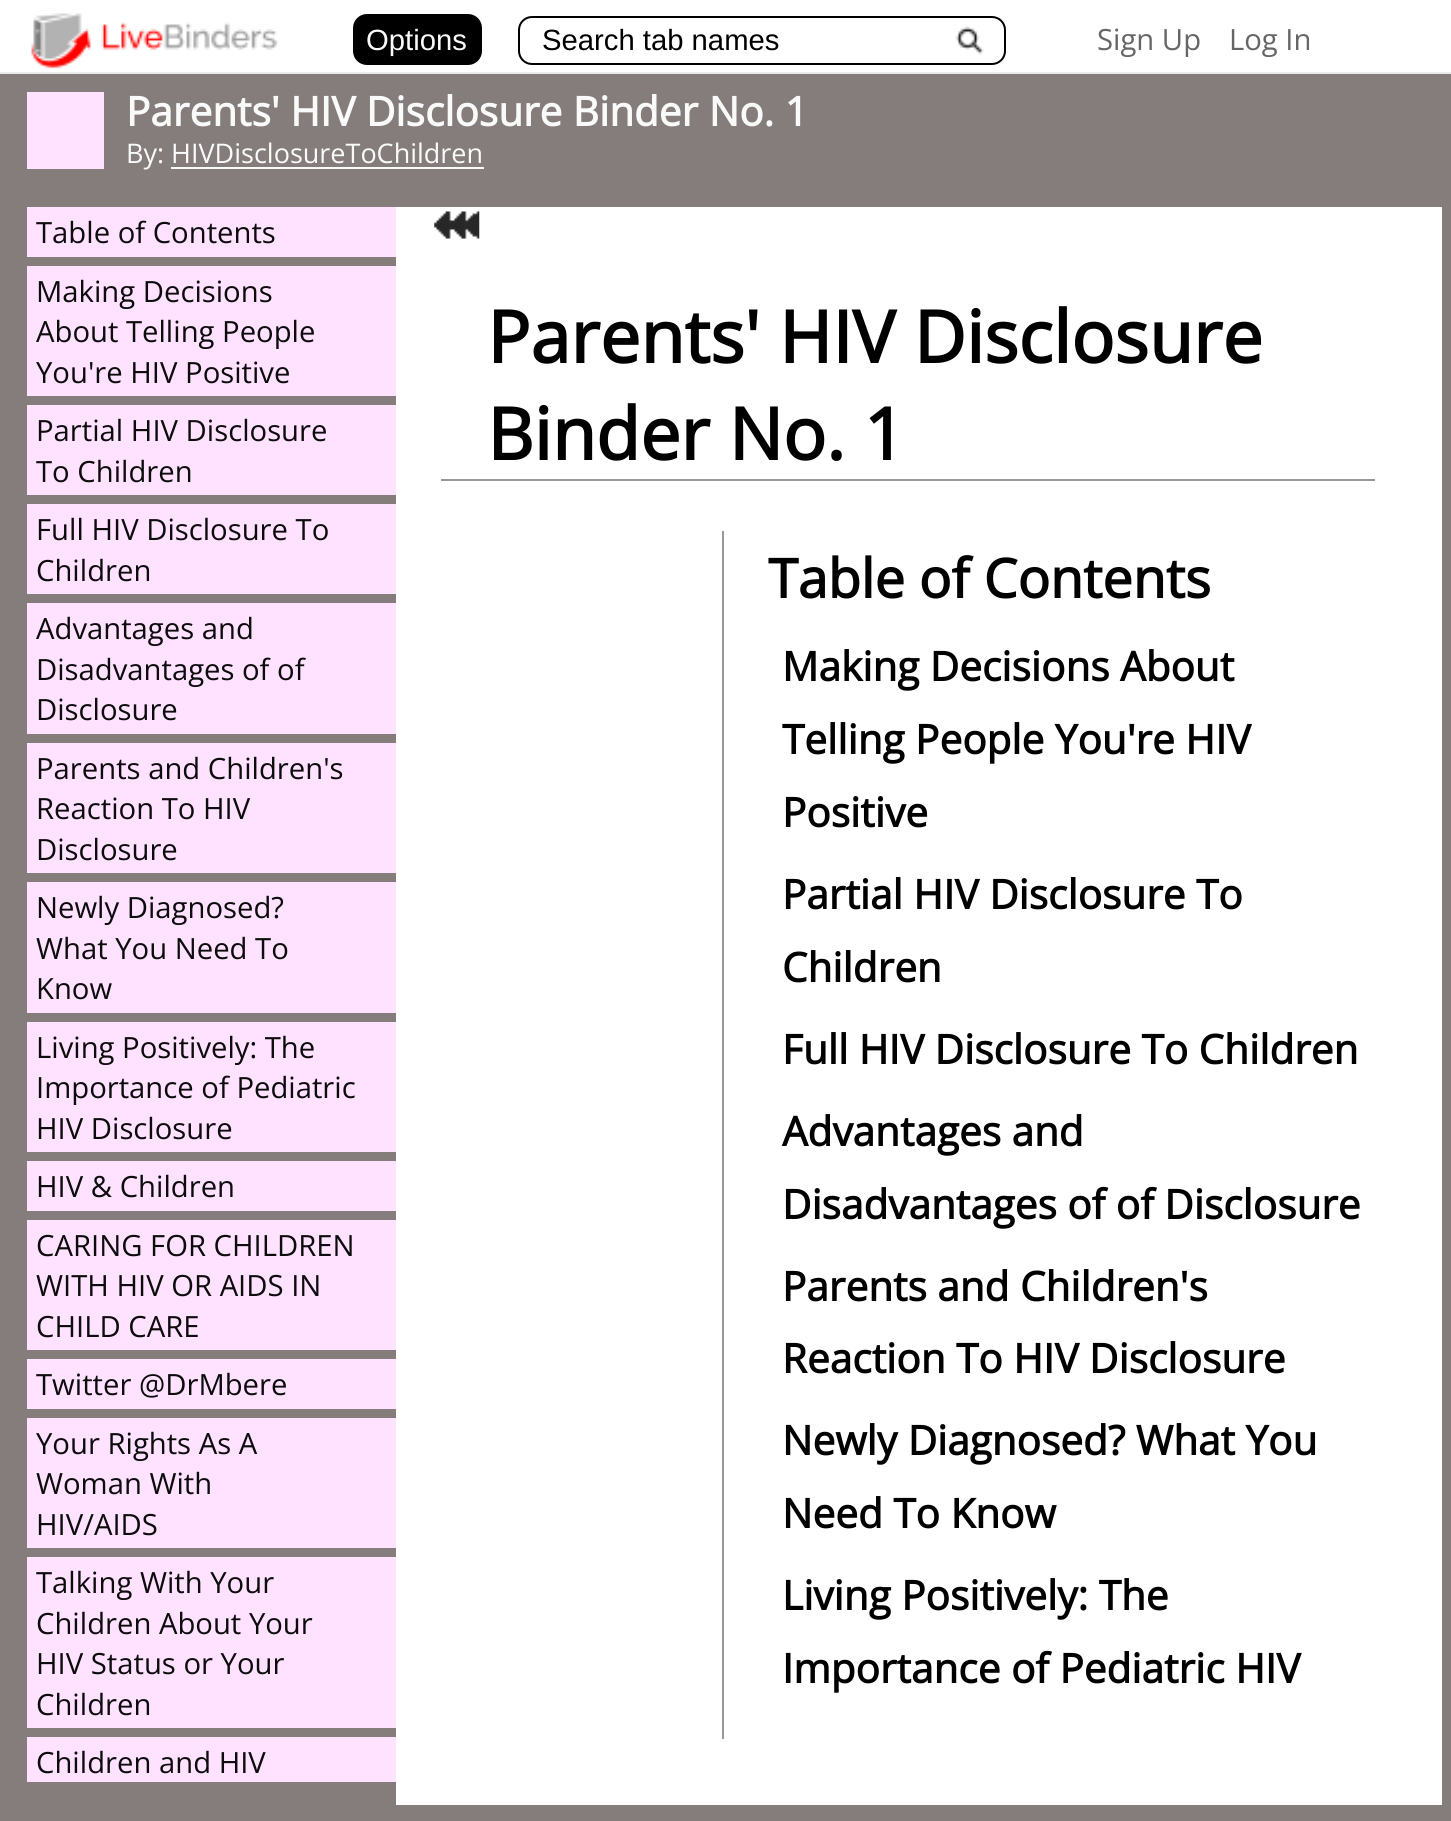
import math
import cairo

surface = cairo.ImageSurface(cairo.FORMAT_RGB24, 1451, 1821)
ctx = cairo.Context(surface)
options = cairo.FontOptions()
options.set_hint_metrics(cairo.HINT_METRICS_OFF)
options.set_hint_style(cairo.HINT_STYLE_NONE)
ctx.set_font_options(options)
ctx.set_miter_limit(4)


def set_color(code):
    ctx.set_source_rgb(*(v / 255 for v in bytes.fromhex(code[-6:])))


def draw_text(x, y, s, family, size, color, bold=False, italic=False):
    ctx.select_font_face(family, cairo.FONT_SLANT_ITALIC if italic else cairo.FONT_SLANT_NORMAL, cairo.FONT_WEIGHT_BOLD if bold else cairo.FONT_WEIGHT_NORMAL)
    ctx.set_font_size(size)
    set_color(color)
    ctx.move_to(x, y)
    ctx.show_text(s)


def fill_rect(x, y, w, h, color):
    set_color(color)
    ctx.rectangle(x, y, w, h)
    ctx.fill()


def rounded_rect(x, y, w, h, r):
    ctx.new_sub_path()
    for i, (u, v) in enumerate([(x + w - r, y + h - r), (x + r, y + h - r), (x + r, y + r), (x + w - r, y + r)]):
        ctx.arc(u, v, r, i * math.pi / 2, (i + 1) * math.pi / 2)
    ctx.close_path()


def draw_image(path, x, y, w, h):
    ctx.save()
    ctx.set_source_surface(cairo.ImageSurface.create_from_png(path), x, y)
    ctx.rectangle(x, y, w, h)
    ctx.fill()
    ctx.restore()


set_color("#847d7b")
ctx.paint()
fill_rect(0, 0, 1451, 72, "#ffffff")
fill_rect(0, 72, 1451, 2, "#ebebeb")
draw_image("assets/img1.png", 31, 13, 247, 56)
set_color("#000000")
rounded_rect(354, 15, 127, 49, 13)
ctx.fill_preserve()
ctx.stroke()
draw_text(366, 50, "Options", "Liberation Sans", 29.25, "#fafafa")
draw_image("assets/img2.png", 955, 26, 29, 29)
rounded_rect(519, 17, 486, 47, 13)
set_color("#000000")
ctx.stroke()
draw_text(542, 50, "Search tab names", "Liberation Sans", 29.25, "#000000")
draw_text(1097, 50, "Sign Up", "Open Sans", 29.25, "#666666")
draw_text(1229, 50, "Log In", "Open Sans", 29.25, "#666666")
fill_rect(27, 92, 77, 77, "#ffe2ff")
draw_text(126, 126, "Parents' HIV Disclosure Binder No. 1", "Open Sans", 40.5, "#fafafa", bold=True)
draw_text(126, 163, "By: HIVDisclosureToChildren", "Open Sans", 27, "#fafafa")
fill_rect(171, 167, 313, 2, "#fafafa")
fill_rect(27, 207, 369, 50, "#ffe2ff")
draw_text(36, 243, "Table of Contents", "Open Sans", 29.25, "#0d0c0d")
fill_rect(27, 266, 369, 130, "#ffe2ff")
draw_text(36, 302, "Making Decisions", "Open Sans", 29.25, "#0d0c0d")
draw_text(36, 342, "About Telling People", "Open Sans", 29.25, "#0d0c0d")
draw_text(36, 383, "You're HIV Positive", "Open Sans", 29.25, "#0d0c0d")
fill_rect(27, 405, 369, 90, "#ffe2ff")
draw_text(36, 441, "Partial HIV Disclosure", "Open Sans", 29.25, "#0d0c0d")
draw_text(36, 482, "To Children", "Open Sans", 29.25, "#0d0c0d")
fill_rect(27, 504, 369, 90, "#ffe2ff")
draw_text(36, 540, "Full HIV Disclosure To", "Open Sans", 29.25, "#0d0c0d")
draw_text(36, 581, "Children", "Open Sans", 29.25, "#0d0c0d")
fill_rect(27, 603, 369, 131, "#ffe2ff")
draw_text(36, 639, "Advantages and", "Open Sans", 29.25, "#0d0c0d")
draw_text(36, 680, "Disadvantages of of", "Open Sans", 29.25, "#0d0c0d")
draw_text(36, 720, "Disclosure", "Open Sans", 29.25, "#0d0c0d")
fill_rect(27, 743, 369, 130, "#ffe2ff")
draw_text(36, 779, "Parents and Children's", "Open Sans", 29.25, "#0d0c0d")
draw_text(36, 819, "Reaction To HIV", "Open Sans", 29.25, "#0d0c0d")
draw_text(36, 860, "Disclosure", "Open Sans", 29.25, "#0d0c0d")
fill_rect(27, 882, 369, 131, "#ffe2ff")
draw_text(36, 918, "Newly Diagnosed?", "Open Sans", 29.25, "#0d0c0d")
draw_text(36, 959, "What You Need To", "Open Sans", 29.25, "#0d0c0d")
draw_text(36, 999, "Know", "Open Sans", 29.25, "#0d0c0d")
fill_rect(27, 1022, 369, 130, "#ffe2ff")
draw_text(36, 1058, "Living Positively: The", "Open Sans", 29.25, "#0d0c0d")
draw_text(36, 1098, "Importance of Pediatric", "Open Sans", 29.25, "#0d0c0d")
draw_text(36, 1139, "HIV Disclosure", "Open Sans", 29.25, "#0d0c0d")
fill_rect(27, 1161, 369, 50, "#ffe2ff")
draw_text(36, 1197, "HIV & Children", "Open Sans", 29.25, "#0d0c0d")
fill_rect(27, 1220, 369, 130, "#ffe2ff")
draw_text(36, 1256, "CARING FOR CHILDREN", "Open Sans", 29.25, "#0d0c0d")
draw_text(36, 1296, "WITH HIV OR AIDS IN", "Open Sans", 29.25, "#0d0c0d")
draw_text(36, 1337, "CHILD CARE", "Open Sans", 29.25, "#0d0c0d")
fill_rect(27, 1359, 369, 50, "#ffe2ff")
draw_text(36, 1395, "Twitter @DrMbere", "Open Sans", 29.25, "#0d0c0d")
fill_rect(27, 1418, 369, 130, "#ffe2ff")
draw_text(36, 1454, "Your Rights As A", "Open Sans", 29.25, "#0d0c0d")
draw_text(36, 1494, "Woman With", "Open Sans", 29.25, "#0d0c0d")
draw_text(36, 1535, "HIV/AIDS", "Open Sans", 29.25, "#0d0c0d")
fill_rect(27, 1557, 369, 171, "#ffe2ff")
draw_text(36, 1593, "Talking With Your", "Open Sans", 29.25, "#0d0c0d")
draw_text(36, 1634, "Children About Your", "Open Sans", 29.25, "#0d0c0d")
draw_text(36, 1674, "HIV Status or Your", "Open Sans", 29.25, "#0d0c0d")
draw_text(36, 1715, "Children", "Open Sans", 29.25, "#0d0c0d")
fill_rect(27, 1737, 369, 45, "#ffe2ff")
draw_text(36, 1773, "Children and HIV", "Open Sans", 29.25, "#0d0c0d")
fill_rect(396, 207, 1046, 1598, "#ffffff")
draw_image("assets/img3.png", 434, 211, 46, 28)
fill_rect(441, 479, 934, 2, "#999999")
draw_text(487, 363, "Parents' HIV Disclosure", "Open Sans", 72, "#000000", bold=True)
draw_text(487, 460, "Binder No. 1", "Open Sans", 72, "#000000", bold=True)
fill_rect(722, 531, 2, 1208, "#999999")
draw_text(768, 598, "Table of Contents", "Open Sans", 54, "#000000", bold=True)
draw_text(782, 681, "Making Decisions About", "Open Sans", 40.5, "#000000", bold=True)
draw_text(782, 754, "Telling People You're HIV", "Open Sans", 40.5, "#000000", bold=True)
draw_text(782, 827, "Positive", "Open Sans", 40.5, "#000000", bold=True)
draw_text(782, 909, "Partial HIV Disclosure To", "Open Sans", 40.5, "#000000", bold=True)
draw_text(782, 982, "Children", "Open Sans", 40.5, "#000000", bold=True)
draw_text(782, 1064, "Full HIV Disclosure To Children", "Open Sans", 40.5, "#000000", bold=True)
draw_text(782, 1146, "Advantages and", "Open Sans", 40.5, "#000000", bold=True)
draw_text(782, 1219, "Disadvantages of of Disclosure", "Open Sans", 40.5, "#000000", bold=True)
draw_text(782, 1301, "Parents and Children's", "Open Sans", 40.5, "#000000", bold=True)
draw_text(782, 1373, "Reaction To HIV Disclosure", "Open Sans", 40.5, "#000000", bold=True)
draw_text(782, 1455, "Newly Diagnosed? What You", "Open Sans", 40.5, "#000000", bold=True)
draw_text(782, 1528, "Need To Know", "Open Sans", 40.5, "#000000", bold=True)
draw_text(782, 1610, "Living Positively: The", "Open Sans", 40.5, "#000000", bold=True)
draw_text(782, 1683, "Importance of Pediatric HIV", "Open Sans", 40.5, "#000000", bold=True)
surface.write_to_png("output.png")
